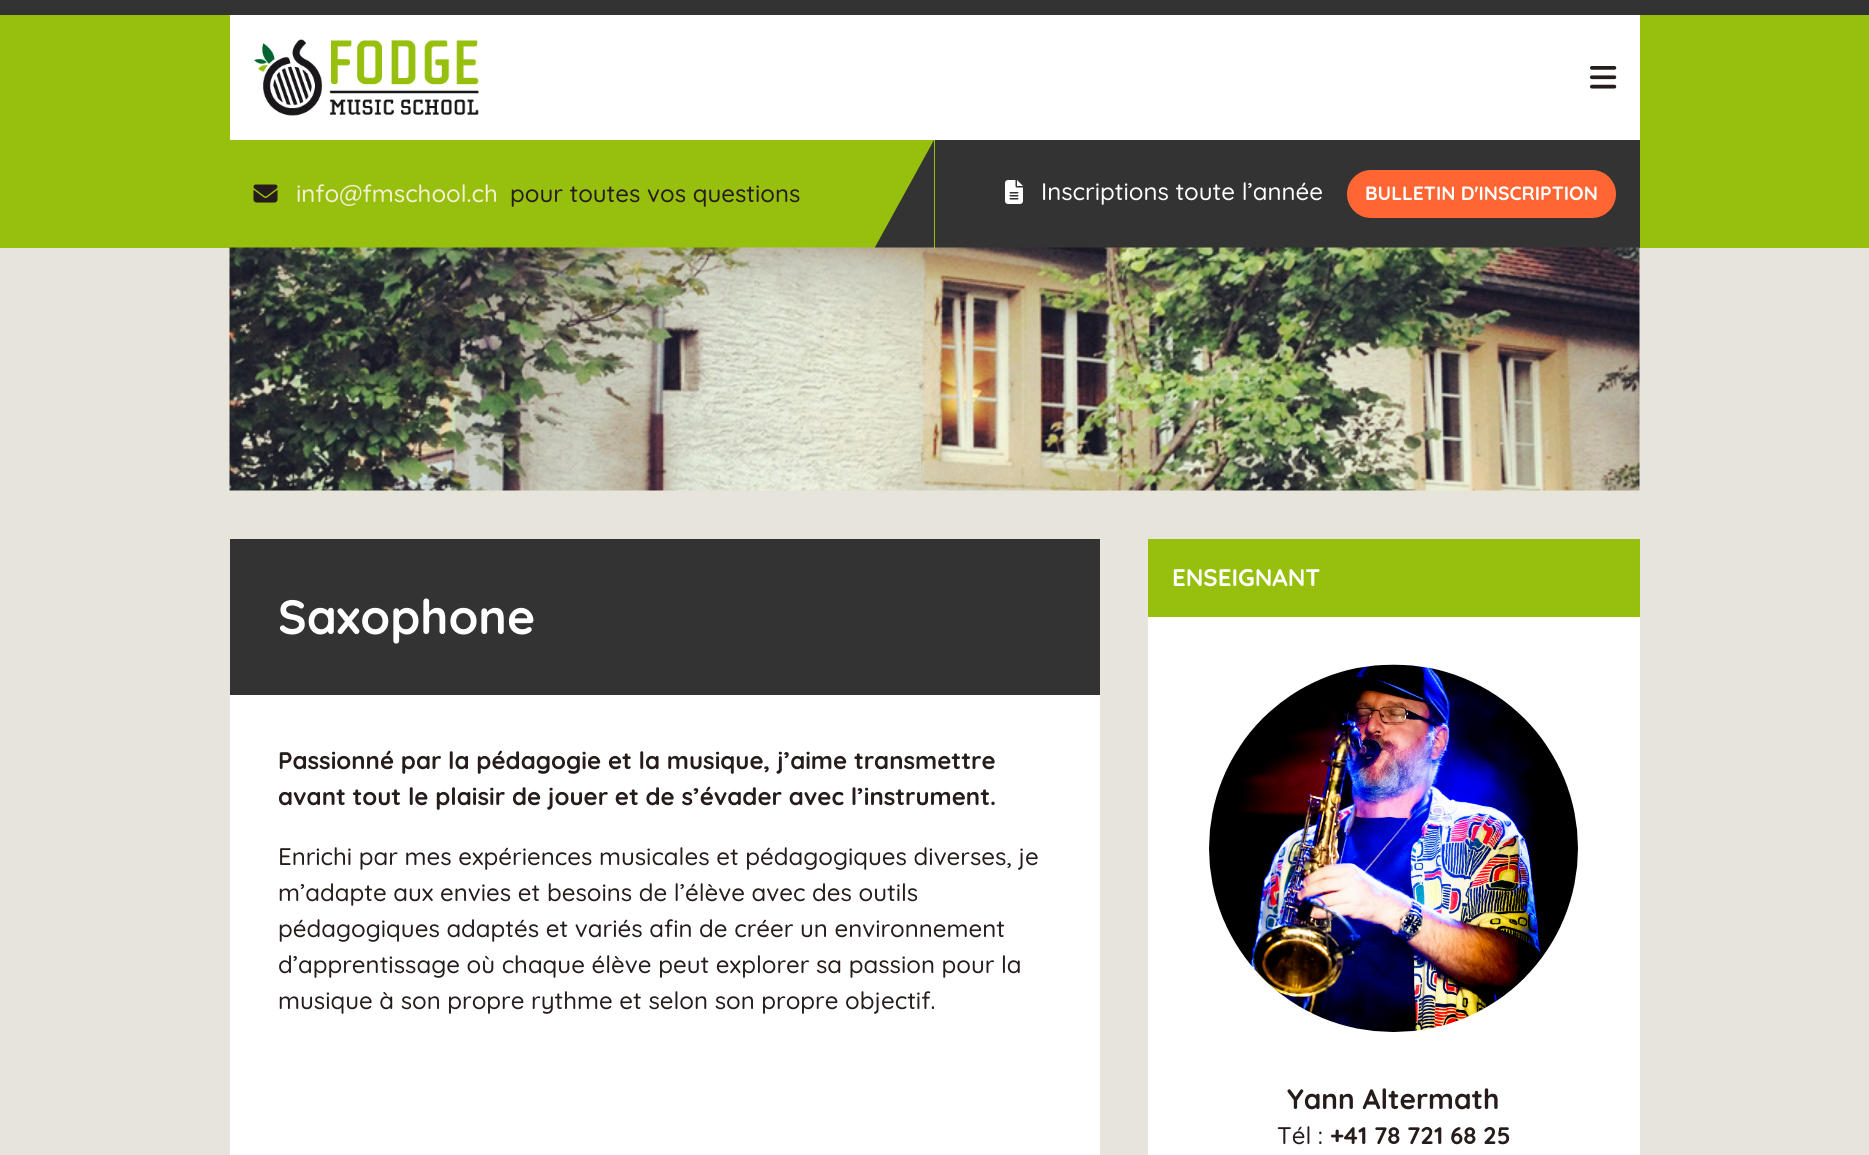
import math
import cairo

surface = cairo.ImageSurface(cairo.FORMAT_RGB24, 1869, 1155)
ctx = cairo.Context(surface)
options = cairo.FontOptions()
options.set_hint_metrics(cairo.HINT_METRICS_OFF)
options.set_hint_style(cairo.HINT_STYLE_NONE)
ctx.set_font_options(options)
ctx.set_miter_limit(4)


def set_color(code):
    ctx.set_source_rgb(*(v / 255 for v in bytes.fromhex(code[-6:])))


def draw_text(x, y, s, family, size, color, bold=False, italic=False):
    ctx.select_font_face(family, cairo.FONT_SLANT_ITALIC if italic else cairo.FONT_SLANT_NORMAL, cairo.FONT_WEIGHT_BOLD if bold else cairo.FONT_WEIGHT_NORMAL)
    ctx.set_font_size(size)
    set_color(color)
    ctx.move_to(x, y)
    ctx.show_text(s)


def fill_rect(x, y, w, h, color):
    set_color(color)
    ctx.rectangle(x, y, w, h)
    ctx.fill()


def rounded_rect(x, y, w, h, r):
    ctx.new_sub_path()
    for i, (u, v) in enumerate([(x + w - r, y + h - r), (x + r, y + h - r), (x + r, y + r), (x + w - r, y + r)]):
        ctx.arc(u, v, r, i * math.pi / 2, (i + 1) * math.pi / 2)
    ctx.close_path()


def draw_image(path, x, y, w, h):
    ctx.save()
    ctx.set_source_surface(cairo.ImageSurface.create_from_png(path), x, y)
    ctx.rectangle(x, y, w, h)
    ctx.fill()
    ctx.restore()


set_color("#e7e5db")
ctx.paint()
fill_rect(0, 15, 1869, 233, "#97bf0d")
fill_rect(0, 0, 1869, 15, "#333333")
fill_rect(230, 15, 1410, 125, "#ffffff")
draw_image("assets/img1.png", 254, 39, 225, 77)
draw_image("assets/img2.png", 1590, 66, 27, 23)
draw_image("assets/img3.png", 253, 184, 25, 19)
draw_text(296, 202, "info@fmschool.ch", "Quicksand Medium", 24, "#f7efd5")
draw_text(510, 202, "pour toutes vos questions", "Quicksand Medium", 24, "#261c1c")
set_color("#333333")
ctx.new_path()
ctx.move_to(934, 249)
ctx.line_to(874, 249)
ctx.line_to(934, 140)
ctx.close_path()
ctx.fill()
fill_rect(935, 140, 705, 108, "#333333")
draw_image("assets/img4.png", 1005, 180, 18, 24)
draw_text(1041, 200, "Inscriptions toute l’année", "Quicksand Medium", 24, "#ffffff")
set_color("#ff6633")
rounded_rect(1347, 170, 269, 48, 24)
ctx.fill()
draw_text(1365, 200, "BULLETIN D'INSCRIPTION", "Quicksand", 19.25, "#ffffff", bold=True)
draw_image("assets/img5.png", 229, 247, 1411, 244)
fill_rect(230, 695, 870, 460, "#ffffff")
fill_rect(230, 539, 870, 156, "#333333")
draw_text(278, 634, "Saxophone", "Quicksand", 48, "#ffffff", bold=True)
draw_text(278, 769, "Passionné par la pédagogie et la musique, j’aime transmettre", "Quicksand", 24, "#261c1c", bold=True)
draw_text(278, 805, "avant tout le plaisir de jouer et de s’évader avec l’instrument.", "Quicksand", 24, "#261c1c", bold=True)
draw_text(278, 865, "Enrichi par mes expériences musicales et pédagogiques diverses, je", "Quicksand Medium", 24, "#261c1c")
draw_text(278, 901, "m’adapte aux envies et besoins de l’élève avec des outils", "Quicksand Medium", 24, "#261c1c")
draw_text(278, 937, "pédagogiques adaptés et variés afin de créer un environnement", "Quicksand Medium", 24, "#261c1c")
draw_text(278, 973, "d’apprentissage où chaque élève peut explorer sa passion pour la", "Quicksand Medium", 24, "#261c1c")
draw_text(278, 1009, "musique à son propre rythme et selon son propre objectif.", "Quicksand Medium", 24, "#261c1c")
fill_rect(1148, 617, 492, 538, "#ffffff")
fill_rect(1148, 539, 492, 78, "#97bf0d")
draw_text(1172, 586, "ENSEIGNANT", "Quicksand", 24, "#ffffff", bold=True)
draw_image("assets/img6.png", 1209, 664, 369, 368)
draw_text(1287, 1109, "Yann Altermath", "Quicksand", 28, "#261c1c", bold=True)
draw_text(1277, 1144, "Tél :", "Quicksand Medium", 24, "#261c1c")
draw_text(1330, 1144, "+41 78 721 68 25", "Quicksand", 24, "#261c1c", bold=True)
surface.write_to_png("output.png")
